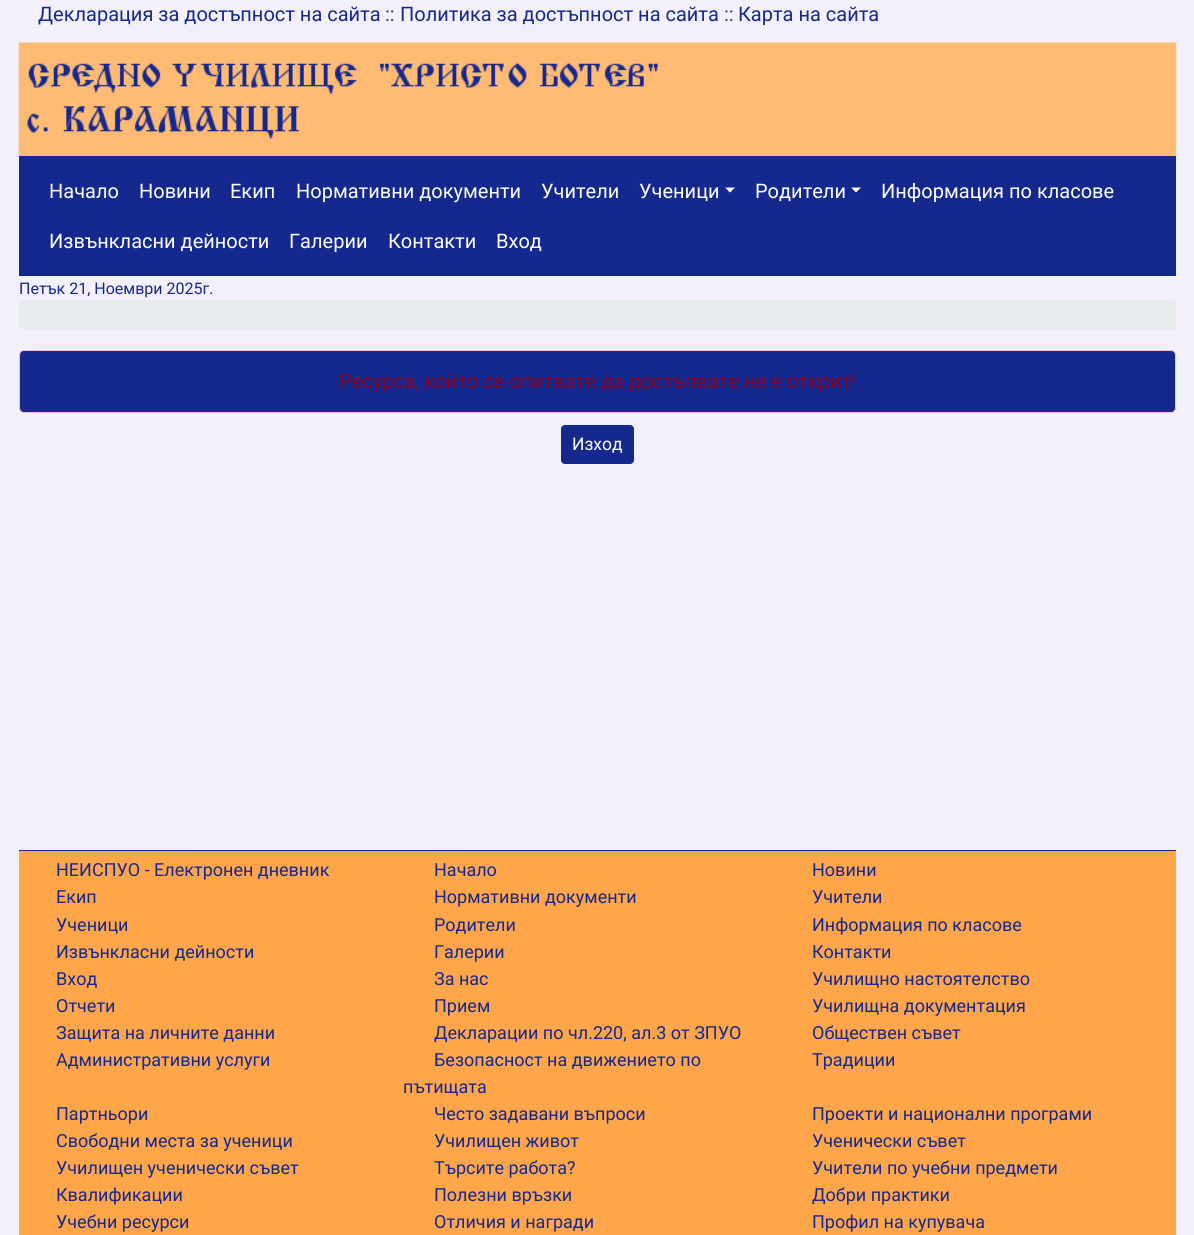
import math
import cairo

surface = cairo.ImageSurface(cairo.FORMAT_RGB24, 1194, 1235)
ctx = cairo.Context(surface)
options = cairo.FontOptions()
options.set_hint_metrics(cairo.HINT_METRICS_OFF)
options.set_hint_style(cairo.HINT_STYLE_NONE)
ctx.set_font_options(options)
ctx.set_miter_limit(4)


def set_color(code):
    ctx.set_source_rgb(*(v / 255 for v in bytes.fromhex(code[-6:])))


def draw_text(x, y, s, family, size, color, bold=False, italic=False):
    ctx.select_font_face(family, cairo.FONT_SLANT_ITALIC if italic else cairo.FONT_SLANT_NORMAL, cairo.FONT_WEIGHT_BOLD if bold else cairo.FONT_WEIGHT_NORMAL)
    ctx.set_font_size(size)
    set_color(color)
    ctx.move_to(x, y)
    ctx.show_text(s)


def fill_rect(x, y, w, h, color):
    set_color(color)
    ctx.rectangle(x, y, w, h)
    ctx.fill()


def rounded_rect(x, y, w, h, r):
    ctx.new_sub_path()
    for i, (u, v) in enumerate([(x + w - r, y + h - r), (x + r, y + h - r), (x + r, y + r), (x + w - r, y + r)]):
        ctx.arc(u, v, r, i * math.pi / 2, (i + 1) * math.pi / 2)
    ctx.close_path()


def draw_image(path, x, y, w, h):
    ctx.save()
    ctx.set_source_surface(cairo.ImageSurface.create_from_png(path), x, y)
    ctx.rectangle(x, y, w, h)
    ctx.fill()
    ctx.restore()


set_color("#f3f0fb")
ctx.paint()
draw_text(38, 21, "Декларация за достъпност на сайта", "Roboto", 20, "#14288e")
draw_text(385, 21, "::", "Roboto", 20, "#384d4d")
draw_text(400, 21, "Политика за достъпност на сайта", "Roboto", 20, "#14288e")
draw_text(724, 21, "::", "Roboto", 20, "#384d4d")
draw_text(738, 21, "Карта на сайта", "Roboto", 20, "#14288e")
draw_image("assets/img1.png", 18, 42, 1159, 115)
fill_rect(19, 156, 1157, 120, "#14288e")
draw_text(49, 198, "Начало", "Roboto", 20, "#ffffff")
draw_text(139, 198, "Новини", "Roboto", 20, "#ffffff")
draw_text(230, 198, "Екип", "Roboto", 20, "#ffffff")
draw_text(296, 198, "Нормативни документи", "Roboto", 20, "#ffffff")
draw_text(541, 198, "Учители", "Roboto", 20, "#ffffff")
draw_text(639, 198, "Ученици", "Roboto", 20, "#ffffff")
ctx.new_path()
ctx.move_to(725, 187.5)
ctx.line_to(735, 187.5)
ctx.line_to(730, 192.5)
ctx.close_path()
ctx.fill()
draw_text(755, 198, "Родители", "Roboto", 20, "#ffffff")
ctx.new_path()
ctx.move_to(851, 187.5)
ctx.line_to(861, 187.5)
ctx.line_to(856, 192.5)
ctx.close_path()
ctx.fill()
draw_text(881, 198, "Информация по класове", "Roboto", 20, "#ffffff")
draw_text(49, 248, "Извънкласни дейности", "Roboto", 20, "#ffffff")
draw_text(289, 248, "Галерии", "Roboto", 20, "#ffffff")
draw_text(388, 248, "Контакти", "Roboto", 20, "#ffffff")
draw_text(496, 248, "Вход", "Roboto", 20, "#ffffff")
draw_text(19, 294, "Петък 21, Ноември 2025г.", "Roboto", 16, "#14288e")
set_color("#e9ecef")
rounded_rect(19, 300, 1157, 30, 5)
ctx.fill()
set_color("#14288e")
rounded_rect(19.5, 350.5, 1156, 62, 4.5)
ctx.fill_preserve()
set_color("#ffb8c8")
ctx.set_line_width(1)
ctx.stroke()
draw_text(339, 388, "Ресурса, който се опитвате да достъпвате не е открит!", "Roboto", 20, "#85001e")
set_color("#14288e")
rounded_rect(561.5, 425.5, 72, 38, 3.5)
ctx.fill_preserve()
ctx.stroke()
draw_text(572, 450, "Изход", "Roboto", 17.5, "#ffffff")
fill_rect(19, 851, 1157, 384, "#ffa64b")
fill_rect(19, 850, 1157, 1, "#14288e")
draw_text(56, 876, "НЕИСПУО - Електронен дневник", "Roboto", 18, "#14288e")
draw_text(434, 876, "Начало", "Roboto", 18, "#14288e")
draw_text(812, 876, "Новини", "Roboto", 18, "#14288e")
draw_text(56, 903, "Екип", "Roboto", 18, "#14288e")
draw_text(434, 903, "Нормативни документи", "Roboto", 18, "#14288e")
draw_text(812, 903, "Учители", "Roboto", 18, "#14288e")
draw_text(56, 931, "Ученици", "Roboto", 18, "#14288e")
draw_text(434, 931, "Родители", "Roboto", 18, "#14288e")
draw_text(812, 931, "Информация по класове", "Roboto", 18, "#14288e")
draw_text(56, 958, "Извънкласни дейности", "Roboto", 18, "#14288e")
draw_text(434, 958, "Галерии", "Roboto", 18, "#14288e")
draw_text(812, 958, "Контакти", "Roboto", 18, "#14288e")
draw_text(56, 985, "Вход", "Roboto", 18, "#14288e")
draw_text(434, 985, "За нас", "Roboto", 18, "#14288e")
draw_text(812, 985, "Училищно настоятелство", "Roboto", 18, "#14288e")
draw_text(56, 1012, "Отчети", "Roboto", 18, "#14288e")
draw_text(434, 1012, "Прием", "Roboto", 18, "#14288e")
draw_text(812, 1012, "Училищна документация", "Roboto", 18, "#14288e")
draw_text(56, 1039, "Защита на личните данни", "Roboto", 18, "#14288e")
draw_text(434, 1039, "Декларации по чл.220, ал.3 от ЗПУО", "Roboto", 18, "#14288e")
draw_text(812, 1039, "Обществен съвет", "Roboto", 18, "#14288e")
draw_text(56, 1066, "Административни услуги", "Roboto", 18, "#14288e")
draw_text(434, 1066, "Безопасност на движението по", "Roboto", 18, "#14288e")
draw_text(403, 1093, "пътищата", "Roboto", 18, "#14288e")
draw_text(812, 1066, "Традиции", "Roboto", 18, "#14288e")
draw_text(56, 1120, "Партньори", "Roboto", 18, "#14288e")
draw_text(434, 1120, "Често задавани въпроси", "Roboto", 18, "#14288e")
draw_text(812, 1120, "Проекти и национални програми", "Roboto", 18, "#14288e")
draw_text(56, 1147, "Свободни места за ученици", "Roboto", 18, "#14288e")
draw_text(434, 1147, "Училищен живот", "Roboto", 18, "#14288e")
draw_text(812, 1147, "Ученически съвет", "Roboto", 18, "#14288e")
draw_text(56, 1174, "Училищен ученически съвет", "Roboto", 18, "#14288e")
draw_text(434, 1174, "Търсите работа?", "Roboto", 18, "#14288e")
draw_text(812, 1174, "Учители по учебни предмети", "Roboto", 18, "#14288e")
draw_text(56, 1201, "Квалификации", "Roboto", 18, "#14288e")
draw_text(434, 1201, "Полезни връзки", "Roboto", 18, "#14288e")
draw_text(812, 1201, "Добри практики", "Roboto", 18, "#14288e")
draw_text(56, 1228, "Учебни ресурси", "Roboto", 18, "#14288e")
draw_text(434, 1228, "Отличия и награди", "Roboto", 18, "#14288e")
draw_text(812, 1228, "Профил на купувача", "Roboto", 18, "#14288e")
surface.write_to_png("output.png")
